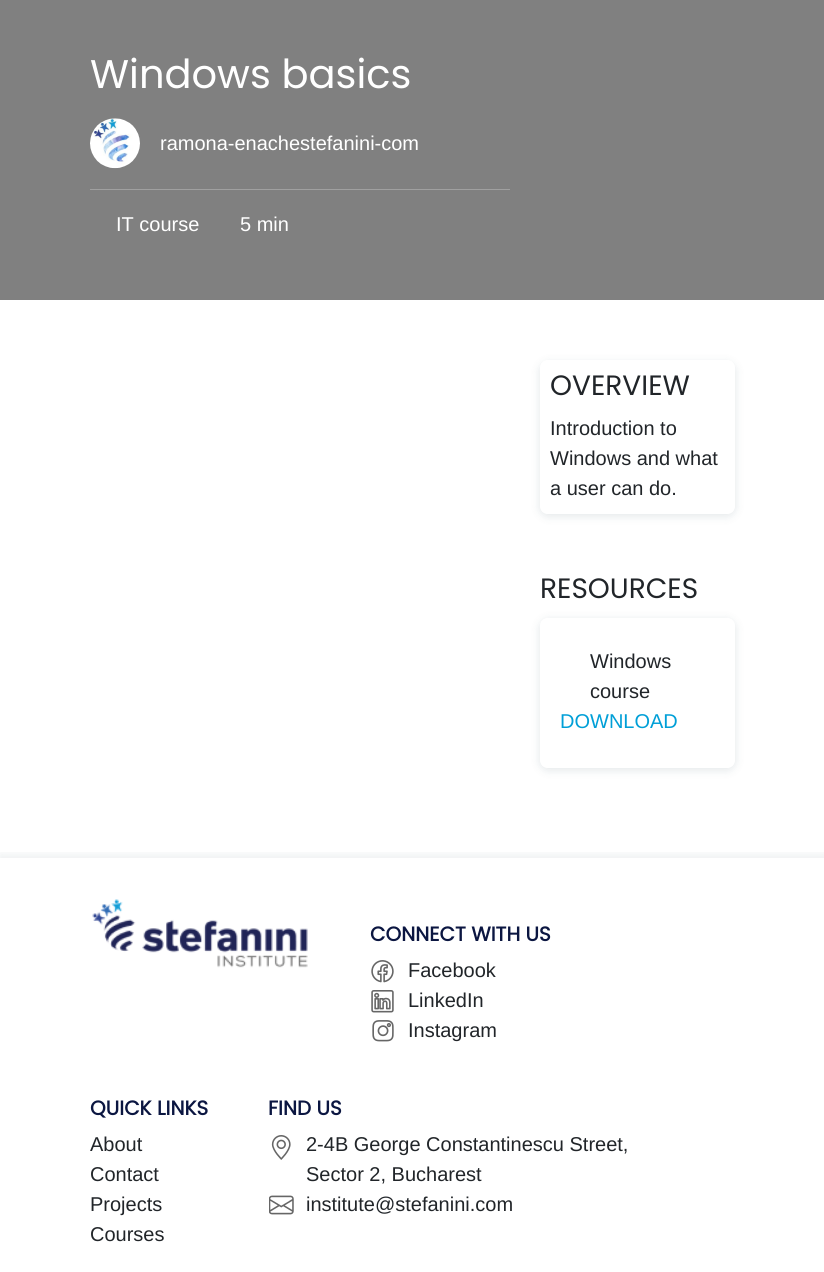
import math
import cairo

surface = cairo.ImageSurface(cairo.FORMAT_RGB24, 824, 1272)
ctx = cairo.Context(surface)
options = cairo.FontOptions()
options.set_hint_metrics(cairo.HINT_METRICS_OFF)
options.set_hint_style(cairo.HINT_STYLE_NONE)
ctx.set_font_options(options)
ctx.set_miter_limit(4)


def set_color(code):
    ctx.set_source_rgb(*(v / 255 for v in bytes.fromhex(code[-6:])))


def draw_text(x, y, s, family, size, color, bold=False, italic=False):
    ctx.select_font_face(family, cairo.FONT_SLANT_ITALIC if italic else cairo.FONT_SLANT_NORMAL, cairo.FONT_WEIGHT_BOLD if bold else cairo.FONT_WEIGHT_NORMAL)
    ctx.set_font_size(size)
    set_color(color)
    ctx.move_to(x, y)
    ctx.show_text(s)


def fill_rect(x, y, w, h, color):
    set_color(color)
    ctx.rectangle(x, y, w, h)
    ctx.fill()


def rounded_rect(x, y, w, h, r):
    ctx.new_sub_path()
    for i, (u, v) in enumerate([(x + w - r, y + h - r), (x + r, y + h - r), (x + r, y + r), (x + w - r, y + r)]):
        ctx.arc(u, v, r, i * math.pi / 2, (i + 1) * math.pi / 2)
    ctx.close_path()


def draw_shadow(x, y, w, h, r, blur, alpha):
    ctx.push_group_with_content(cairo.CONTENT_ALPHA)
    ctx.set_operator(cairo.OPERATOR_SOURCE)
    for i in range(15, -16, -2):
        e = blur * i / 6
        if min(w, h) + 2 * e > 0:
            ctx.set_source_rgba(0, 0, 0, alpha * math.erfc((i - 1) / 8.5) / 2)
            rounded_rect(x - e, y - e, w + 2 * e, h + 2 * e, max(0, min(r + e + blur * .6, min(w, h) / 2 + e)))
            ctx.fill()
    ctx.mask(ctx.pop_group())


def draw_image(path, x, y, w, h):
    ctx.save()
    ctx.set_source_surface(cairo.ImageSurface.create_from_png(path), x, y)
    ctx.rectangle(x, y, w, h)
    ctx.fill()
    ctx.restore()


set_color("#ffffff")
ctx.paint()
fill_rect(0, 0, 824, 300, "#808080")
draw_text(90, 88, "Windows basics", "Poppins", 40, "#ffffff")
draw_image("assets/img1.png", 90, 118, 50, 51)
draw_text(160, 150, "ramona-enachestefanini-com", "Liberation Sans", 20, "#ffffff")
fill_rect(90, 189, 420, 1, "#a0a0a0")
draw_text(116, 231, "IT course", "Liberation Sans", 20, "#ffffff")
draw_text(240, 231, "5 min", "Liberation Sans", 20, "#ffffff")
ctx.save()
ctx.set_fill_rule(cairo.FILL_RULE_EVEN_ODD)
ctx.new_path()
ctx.move_to(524, 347)
ctx.line_to(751, 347)
ctx.line_to(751, 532)
ctx.line_to(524, 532)
ctx.close_path()
ctx.move_to(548, 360)
ctx.line_to(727, 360)
ctx.curve_to(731.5, 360, 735, 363.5, 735, 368)
ctx.line_to(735, 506)
ctx.curve_to(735, 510.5, 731.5, 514, 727, 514)
ctx.line_to(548, 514)
ctx.curve_to(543.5, 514, 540, 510.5, 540, 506)
ctx.line_to(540, 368)
ctx.curve_to(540, 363.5, 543.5, 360, 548, 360)
ctx.close_path()
ctx.clip()
set_color("#0a2f3d")
draw_shadow(540, 363, 195, 153, 8, 5, 0.12)
ctx.restore()
draw_text(550, 395, "OVERVIEW", "Poppins", 28, "#212529")
draw_text(550, 435, "Introduction to", "Liberation Sans", 20, "#212529")
draw_text(550, 465, "Windows and what", "Liberation Sans", 20, "#212529")
draw_text(550, 495, "a user can do.", "Liberation Sans", 20, "#212529")
draw_text(540, 598, "RESOURCES", "Poppins", 28, "#212529")
ctx.save()
ctx.set_fill_rule(cairo.FILL_RULE_EVEN_ODD)
ctx.new_path()
ctx.move_to(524, 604)
ctx.line_to(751, 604)
ctx.line_to(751, 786)
ctx.line_to(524, 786)
ctx.close_path()
ctx.move_to(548, 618)
ctx.line_to(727, 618)
ctx.curve_to(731.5, 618, 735, 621.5, 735, 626)
ctx.line_to(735, 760)
ctx.curve_to(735, 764.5, 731.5, 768, 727, 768)
ctx.line_to(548, 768)
ctx.curve_to(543.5, 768, 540, 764.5, 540, 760)
ctx.line_to(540, 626)
ctx.curve_to(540, 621.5, 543.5, 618, 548, 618)
ctx.close_path()
ctx.clip()
set_color("#0a2f3d")
draw_shadow(540, 620, 195, 150, 8, 5, 0.12)
ctx.restore()
draw_text(590, 668, "Windows", "Liberation Sans", 20, "#212529")
draw_text(590, 698, "course", "Liberation Sans", 20, "#212529")
draw_text(560, 728, "DOWNLOAD", "Liberation Sans", 20, "#009fd7")
ctx.save()
ctx.rectangle(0, 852, 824, 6)
ctx.clip()
set_color("#0a2f3d")
draw_shadow(0, 855, 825, 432, 0, 5, 0.08)
ctx.restore()
draw_image("assets/img2.png", 92, 899, 216, 69)
draw_text(370, 941, "CONNECT WITH US", "Poppins", 20, "#0b1641", bold=True)
draw_image("assets/img3.png", 371, 960, 23, 23)
draw_text(408, 977, "Facebook", "Liberation Sans", 20, "#212529")
draw_image("assets/img4.png", 371, 990, 23, 23)
draw_text(408, 1007, "LinkedIn", "Liberation Sans", 20, "#212529")
draw_image("assets/img5.png", 372, 1020, 22, 22)
draw_text(408, 1037, "Instagram", "Liberation Sans", 20, "#212529")
draw_text(90, 1115, "QUICK LINKS", "Poppins", 20, "#0b1641", bold=True)
draw_text(90, 1151, "About", "Liberation Sans", 20, "#212529")
draw_text(90, 1181, "Contact", "Liberation Sans", 20, "#212529")
draw_text(90, 1211, "Projects", "Liberation Sans", 20, "#212529")
draw_text(90, 1241, "Courses", "Liberation Sans", 20, "#212529")
draw_text(268, 1115, "FIND US", "Poppins", 20, "#0b1641", bold=True)
draw_image("assets/img6.png", 271, 1135, 20, 25)
draw_text(306, 1151, "2-4B George Constantinescu Street,", "Liberation Sans", 20, "#212529")
draw_text(306, 1181, "Sector 2, Bucharest", "Liberation Sans", 20, "#212529")
draw_image("assets/img7.png", 269, 1195, 25, 20)
draw_text(306, 1211, "institute@stefanini.com", "Liberation Sans", 20, "#212529")
surface.write_to_png("output.png")
